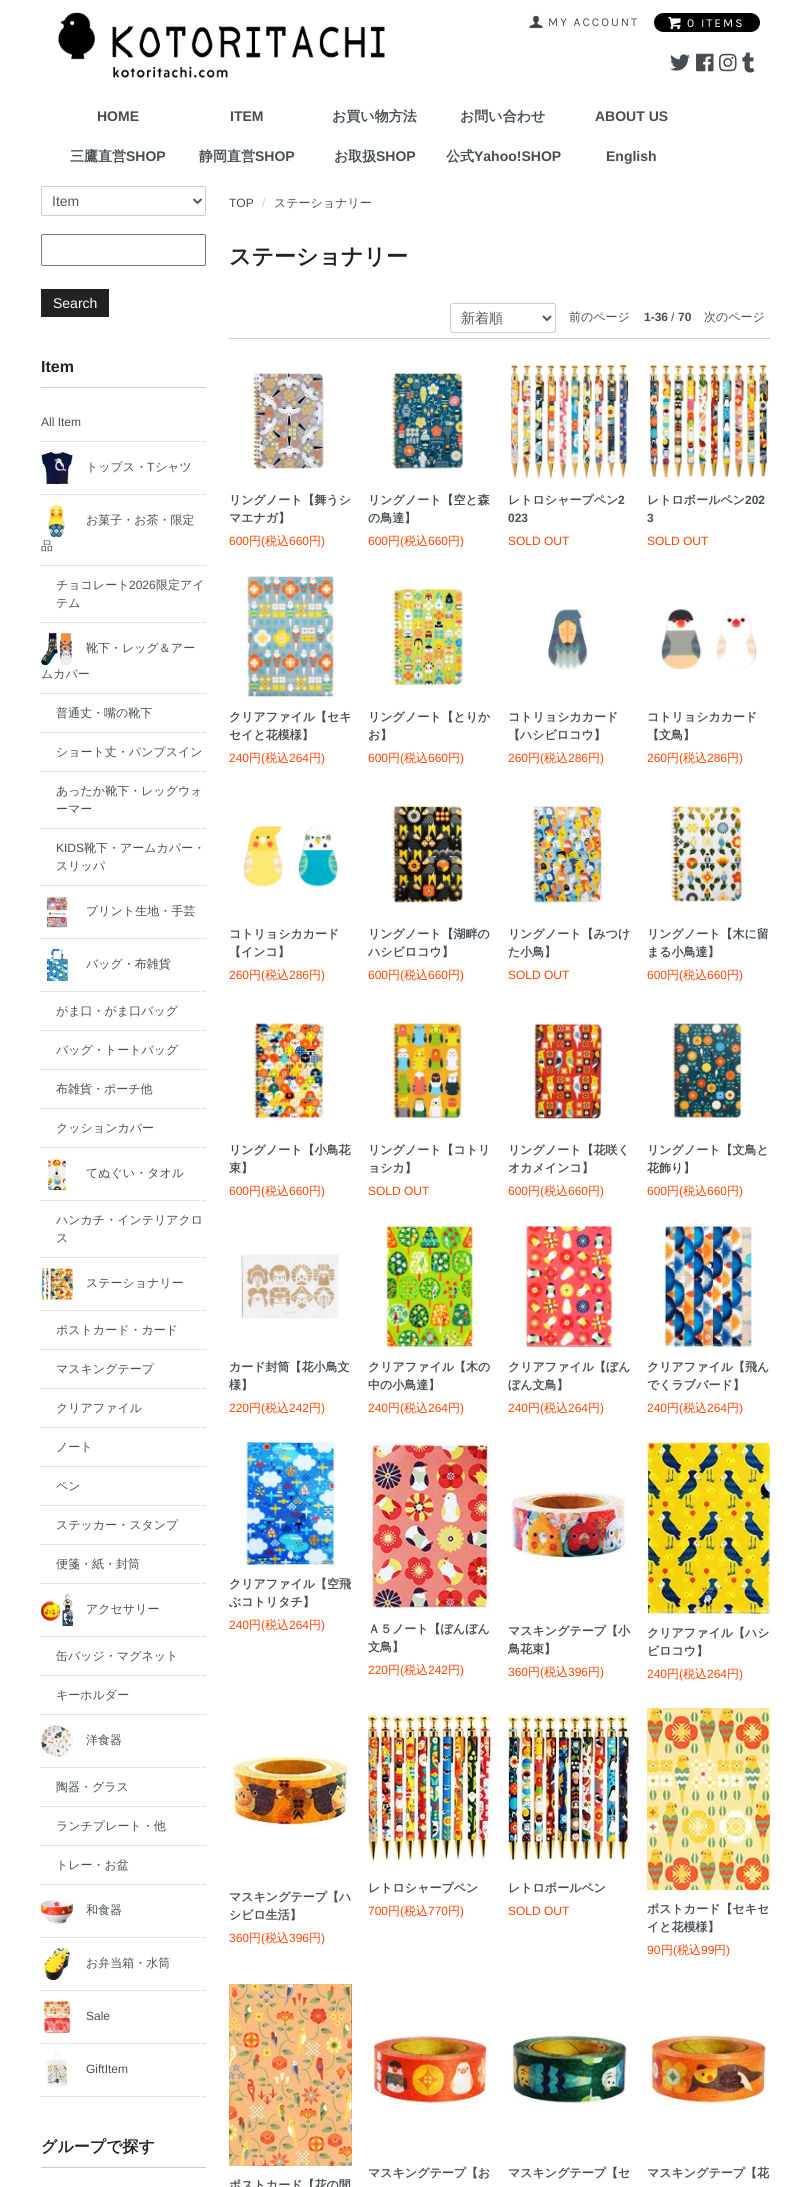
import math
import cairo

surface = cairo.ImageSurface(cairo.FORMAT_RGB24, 811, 2187)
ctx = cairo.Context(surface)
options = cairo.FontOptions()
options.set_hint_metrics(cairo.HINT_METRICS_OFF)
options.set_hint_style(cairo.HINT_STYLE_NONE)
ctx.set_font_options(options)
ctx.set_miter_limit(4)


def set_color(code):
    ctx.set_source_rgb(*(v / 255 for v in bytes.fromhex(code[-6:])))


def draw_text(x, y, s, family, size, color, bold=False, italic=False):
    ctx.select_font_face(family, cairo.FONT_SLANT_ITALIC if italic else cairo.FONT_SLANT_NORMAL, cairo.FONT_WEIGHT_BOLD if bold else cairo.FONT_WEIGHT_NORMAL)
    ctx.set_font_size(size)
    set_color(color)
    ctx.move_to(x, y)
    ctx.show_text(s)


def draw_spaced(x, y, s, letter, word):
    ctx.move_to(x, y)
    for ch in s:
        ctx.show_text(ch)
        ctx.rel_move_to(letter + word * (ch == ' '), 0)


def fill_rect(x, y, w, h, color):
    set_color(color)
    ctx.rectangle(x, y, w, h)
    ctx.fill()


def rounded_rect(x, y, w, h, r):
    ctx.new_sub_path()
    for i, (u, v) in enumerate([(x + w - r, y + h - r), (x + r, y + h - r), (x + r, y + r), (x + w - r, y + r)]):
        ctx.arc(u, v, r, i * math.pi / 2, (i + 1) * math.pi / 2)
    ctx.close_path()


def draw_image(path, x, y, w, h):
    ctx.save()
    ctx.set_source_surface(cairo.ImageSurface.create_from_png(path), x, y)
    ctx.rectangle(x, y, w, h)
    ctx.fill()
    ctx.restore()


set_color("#ffffff")
ctx.paint()
draw_image("assets/img1.png", 58, 12, 327, 66)
draw_image("assets/img2.png", 529, 15, 14, 14)
ctx.select_font_face("Karla")
ctx.set_font_size(12)
set_color("#464e54")
draw_spaced(548, 26, "MY ACCOUNT", 2, 0)
set_color("#000000")
rounded_rect(654, 13, 106, 19, 9.5)
ctx.fill()
draw_image("assets/img3.png", 668, 16, 13, 14)
set_color("#ffffff")
draw_spaced(687, 27, "0 ITEMS", 2, 0)
draw_image("assets/img4.png", 670, 54, 20, 17)
draw_image("assets/img5.png", 696, 53, 18, 19)
draw_image("assets/img6.png", 719, 53, 18, 19)
draw_image("assets/img7.png", 742, 52, 13, 21)
draw_text(97, 121, "HOME", "Liberation Sans", 14, "#464e54", bold=True)
draw_text(230, 121, "ITEM", "Liberation Sans", 14, "#464e54", bold=True)
draw_text(332, 121, "お買い物方法", "WenQuanYi Zen Hei", 14, "#464e54", bold=True)
draw_text(460, 121, "お問い合わせ", "WenQuanYi Zen Hei", 14, "#464e54", bold=True)
draw_text(595, 121, "ABOUT US", "Liberation Sans", 14, "#464e54", bold=True)
draw_text(70, 161, "三鷹直営", "WenQuanYi Zen Hei", 14, "#464e54", bold=True)
draw_text(126, 161, "SHOP", "Liberation Sans", 14, "#464e54", bold=True)
draw_text(199, 161, "静岡直営", "WenQuanYi Zen Hei", 14, "#464e54", bold=True)
draw_text(255, 161, "SHOP", "Liberation Sans", 14, "#464e54", bold=True)
draw_text(334, 161, "お取扱", "WenQuanYi Zen Hei", 14, "#464e54", bold=True)
draw_text(376, 161, "SHOP", "Liberation Sans", 14, "#464e54", bold=True)
draw_text(446, 161, "公式", "WenQuanYi Zen Hei", 14, "#464e54", bold=True)
draw_text(474, 161, "Yahoo!SHOP", "Liberation Sans", 14, "#464e54", bold=True)
draw_text(606, 161, "English", "Liberation Sans", 14, "#464e54", bold=True)
rounded_rect(41.5, 186.5, 164, 29, 1.5)
set_color("#cccccc")
ctx.set_line_width(1)
ctx.stroke()
ctx.new_path()
ctx.move_to(193.5, 199)
ctx.line_to(197.5, 203)
ctx.line_to(201.5, 199)
set_color("#555555")
ctx.set_line_width(2)
ctx.stroke()
draw_text(52, 206, "Item", "Liberation Sans", 14, "#555555")
rounded_rect(41.5, 234.5, 164, 31, 1.5)
set_color("#767676")
ctx.set_line_width(1)
ctx.stroke()
fill_rect(41, 289, 68, 28, "#222222")
draw_text(53, 308, "Search", "Liberation Sans", 14, "#ffffff")
fill_rect(41, 387, 165, 1, "#cccccc")
draw_text(41, 372, "Item", "Liberation Sans", 16, "#222222", bold=True)
ctx.new_path()
ctx.move_to(41, 441.5)
ctx.line_to(206, 441.5)
set_color("#cccccc")
ctx.set_dash([1, 1])
ctx.stroke()
draw_text(41, 426, "All Item", "Liberation Sans", 12, "#464e54")
ctx.new_path()
ctx.move_to(41, 494.5)
ctx.line_to(206, 494.5)
set_color("#cccccc")
ctx.stroke()
draw_image("assets/img8.png", 41, 452, 32, 32)
draw_text(86, 471, "トップス・", "WenQuanYi Zen Hei Medium", 12, "#464e54")
draw_text(147, 471, "T", "Liberation Sans", 12, "#464e54")
draw_text(155, 471, "シャツ", "WenQuanYi Zen Hei Medium", 12, "#464e54")
ctx.new_path()
ctx.move_to(41, 565.5)
ctx.line_to(206, 565.5)
set_color("#cccccc")
ctx.stroke()
draw_image("assets/img9.png", 48, 505, 18, 32)
draw_text(86, 524, "お菓子・お茶・限定", "WenQuanYi Zen Hei Medium", 12, "#464e54")
draw_text(41, 550, "品", "WenQuanYi Zen Hei Medium", 12, "#464e54")
ctx.new_path()
ctx.move_to(41, 622.5)
ctx.line_to(206, 622.5)
set_color("#cccccc")
ctx.stroke()
draw_text(56, 589, "チョコレート", "WenQuanYi Zen Hei Medium", 12, "#464e54")
draw_text(129, 589, "2026", "Liberation Sans", 12, "#464e54")
draw_text(156, 589, "限定アイ", "WenQuanYi Zen Hei Medium", 12, "#464e54")
draw_text(56, 607, "テム", "WenQuanYi Zen Hei Medium", 12, "#464e54")
ctx.new_path()
ctx.move_to(41, 693.5)
ctx.line_to(206, 693.5)
set_color("#cccccc")
ctx.stroke()
draw_image("assets/img10.png", 41, 633, 32, 32)
draw_text(86, 652, "靴下・レッグ＆アー", "WenQuanYi Zen Hei Medium", 12, "#464e54")
draw_text(41, 678, "ムカバー", "WenQuanYi Zen Hei Medium", 12, "#464e54")
ctx.new_path()
ctx.move_to(41, 732.5)
ctx.line_to(206, 732.5)
set_color("#cccccc")
ctx.stroke()
draw_text(56, 717, "普通丈・嘴の靴下", "WenQuanYi Zen Hei Medium", 12, "#464e54")
ctx.new_path()
ctx.move_to(41, 771.5)
ctx.line_to(206, 771.5)
set_color("#cccccc")
ctx.stroke()
draw_text(56, 756, "ショート丈・パンプスイン", "WenQuanYi Zen Hei Medium", 12, "#464e54")
ctx.new_path()
ctx.move_to(41, 828.5)
ctx.line_to(206, 828.5)
set_color("#cccccc")
ctx.stroke()
draw_text(56, 795, "あったか靴下・レッグウォ", "WenQuanYi Zen Hei Medium", 12, "#464e54")
draw_text(56, 813, "ーマー", "WenQuanYi Zen Hei Medium", 12, "#464e54")
ctx.new_path()
ctx.move_to(41, 885.5)
ctx.line_to(206, 885.5)
set_color("#cccccc")
ctx.stroke()
draw_text(56, 852, "KIDS", "Liberation Sans", 12, "#464e54")
draw_text(84, 852, "靴下・アームカバー・", "WenQuanYi Zen Hei Medium", 12, "#464e54")
draw_text(56, 870, "スリッパ", "WenQuanYi Zen Hei Medium", 12, "#464e54")
ctx.new_path()
ctx.move_to(41, 938.5)
ctx.line_to(206, 938.5)
set_color("#cccccc")
ctx.stroke()
draw_image("assets/img11.png", 46, 896, 22, 32)
draw_text(86, 915, "プリント生地・手芸", "WenQuanYi Zen Hei Medium", 12, "#464e54")
ctx.new_path()
ctx.move_to(41, 991.5)
ctx.line_to(206, 991.5)
set_color("#cccccc")
ctx.stroke()
draw_image("assets/img12.png", 46, 949, 23, 32)
draw_text(86, 968, "バッグ・布雑貨", "WenQuanYi Zen Hei Medium", 12, "#464e54")
ctx.new_path()
ctx.move_to(41, 1030.5)
ctx.line_to(206, 1030.5)
set_color("#cccccc")
ctx.stroke()
draw_text(56, 1015, "がま口・がま口バッグ", "WenQuanYi Zen Hei Medium", 12, "#464e54")
ctx.new_path()
ctx.move_to(41, 1069.5)
ctx.line_to(206, 1069.5)
set_color("#cccccc")
ctx.stroke()
draw_text(56, 1054, "バッグ・トートバッグ", "WenQuanYi Zen Hei Medium", 12, "#464e54")
ctx.new_path()
ctx.move_to(41, 1108.5)
ctx.line_to(206, 1108.5)
set_color("#cccccc")
ctx.stroke()
draw_text(56, 1093, "布雑貨・ポーチ他", "WenQuanYi Zen Hei Medium", 12, "#464e54")
ctx.new_path()
ctx.move_to(41, 1147.5)
ctx.line_to(206, 1147.5)
set_color("#cccccc")
ctx.stroke()
draw_text(56, 1132, "クッションカバー", "WenQuanYi Zen Hei Medium", 12, "#464e54")
ctx.new_path()
ctx.move_to(41, 1200.5)
ctx.line_to(206, 1200.5)
set_color("#cccccc")
ctx.stroke()
draw_image("assets/img13.png", 48, 1158, 19, 32)
draw_text(86, 1177, "てぬぐい・タオル", "WenQuanYi Zen Hei Medium", 12, "#464e54")
ctx.new_path()
ctx.move_to(41, 1257.5)
ctx.line_to(206, 1257.5)
set_color("#cccccc")
ctx.stroke()
draw_text(56, 1224, "ハンカチ・インテリアクロ", "WenQuanYi Zen Hei Medium", 12, "#464e54")
draw_text(56, 1242, "ス", "WenQuanYi Zen Hei Medium", 12, "#464e54")
ctx.new_path()
ctx.move_to(41, 1310.5)
ctx.line_to(206, 1310.5)
set_color("#cccccc")
ctx.stroke()
draw_image("assets/img14.png", 41, 1268, 32, 32)
draw_text(86, 1287, "ステーショナリー", "WenQuanYi Zen Hei Medium", 12, "#464e54")
ctx.new_path()
ctx.move_to(41, 1349.5)
ctx.line_to(206, 1349.5)
set_color("#cccccc")
ctx.stroke()
draw_text(56, 1334, "ポストカード・カード", "WenQuanYi Zen Hei Medium", 12, "#464e54")
ctx.new_path()
ctx.move_to(41, 1388.5)
ctx.line_to(206, 1388.5)
set_color("#cccccc")
ctx.stroke()
draw_text(56, 1373, "マスキングテープ", "WenQuanYi Zen Hei Medium", 12, "#464e54")
ctx.new_path()
ctx.move_to(41, 1427.5)
ctx.line_to(206, 1427.5)
set_color("#cccccc")
ctx.stroke()
draw_text(56, 1412, "クリアファイル", "WenQuanYi Zen Hei Medium", 12, "#464e54")
ctx.new_path()
ctx.move_to(41, 1466.5)
ctx.line_to(206, 1466.5)
set_color("#cccccc")
ctx.stroke()
draw_text(56, 1451, "ノート", "WenQuanYi Zen Hei Medium", 12, "#464e54")
ctx.new_path()
ctx.move_to(41, 1505.5)
ctx.line_to(206, 1505.5)
set_color("#cccccc")
ctx.stroke()
draw_text(56, 1490, "ペン", "WenQuanYi Zen Hei Medium", 12, "#464e54")
ctx.new_path()
ctx.move_to(41, 1544.5)
ctx.line_to(206, 1544.5)
set_color("#cccccc")
ctx.stroke()
draw_text(56, 1529, "ステッカー・スタンプ", "WenQuanYi Zen Hei Medium", 12, "#464e54")
ctx.new_path()
ctx.move_to(41, 1583.5)
ctx.line_to(206, 1583.5)
set_color("#cccccc")
ctx.stroke()
draw_text(56, 1568, "便箋・紙・封筒", "WenQuanYi Zen Hei Medium", 12, "#464e54")
ctx.new_path()
ctx.move_to(41, 1636.5)
ctx.line_to(206, 1636.5)
set_color("#cccccc")
ctx.stroke()
draw_image("assets/img15.png", 41, 1594, 32, 32)
draw_text(86, 1613, "アクセサリー", "WenQuanYi Zen Hei Medium", 12, "#464e54")
ctx.new_path()
ctx.move_to(41, 1675.5)
ctx.line_to(206, 1675.5)
set_color("#cccccc")
ctx.stroke()
draw_text(56, 1660, "缶バッジ・マグネット", "WenQuanYi Zen Hei Medium", 12, "#464e54")
ctx.new_path()
ctx.move_to(41, 1714.5)
ctx.line_to(206, 1714.5)
set_color("#cccccc")
ctx.stroke()
draw_text(56, 1699, "キーホルダー", "WenQuanYi Zen Hei Medium", 12, "#464e54")
ctx.new_path()
ctx.move_to(41, 1767.5)
ctx.line_to(206, 1767.5)
set_color("#cccccc")
ctx.stroke()
draw_image("assets/img16.png", 41, 1725, 32, 32)
draw_text(86, 1744, "洋食器", "WenQuanYi Zen Hei Medium", 12, "#464e54")
ctx.new_path()
ctx.move_to(41, 1806.5)
ctx.line_to(206, 1806.5)
set_color("#cccccc")
ctx.stroke()
draw_text(56, 1791, "陶器・グラス", "WenQuanYi Zen Hei Medium", 12, "#464e54")
ctx.new_path()
ctx.move_to(41, 1845.5)
ctx.line_to(206, 1845.5)
set_color("#cccccc")
ctx.stroke()
draw_text(56, 1830, "ランチプレート・他", "WenQuanYi Zen Hei Medium", 12, "#464e54")
ctx.new_path()
ctx.move_to(41, 1884.5)
ctx.line_to(206, 1884.5)
set_color("#cccccc")
ctx.stroke()
draw_text(56, 1869, "トレー・お盆", "WenQuanYi Zen Hei Medium", 12, "#464e54")
ctx.new_path()
ctx.move_to(41, 1937.5)
ctx.line_to(206, 1937.5)
set_color("#cccccc")
ctx.stroke()
draw_image("assets/img17.png", 41, 1900, 32, 24)
draw_text(86, 1914, "和食器", "WenQuanYi Zen Hei Medium", 12, "#464e54")
ctx.new_path()
ctx.move_to(41, 1990.5)
ctx.line_to(206, 1990.5)
set_color("#cccccc")
ctx.stroke()
draw_image("assets/img18.png", 44, 1948, 27, 32)
draw_text(86, 1967, "お弁当箱・水筒", "WenQuanYi Zen Hei Medium", 12, "#464e54")
ctx.new_path()
ctx.move_to(41, 2043.5)
ctx.line_to(206, 2043.5)
set_color("#cccccc")
ctx.stroke()
draw_image("assets/img19.png", 43, 2001, 28, 32)
draw_text(86, 2020, "Sale", "Liberation Sans", 12, "#464e54")
ctx.new_path()
ctx.move_to(41, 2096.5)
ctx.line_to(206, 2096.5)
set_color("#cccccc")
ctx.stroke()
draw_image("assets/img20.png", 47, 2054, 21, 32)
draw_text(86, 2073, "GiftItem", "Liberation Sans", 12, "#464e54")
fill_rect(41, 2167, 165, 1, "#cccccc")
draw_text(41, 2152, "グループで探す", "WenQuanYi Zen Hei", 16, "#222222", bold=True)
draw_text(229, 207, "TOP", "Liberation Sans", 12, "#464e54")
draw_text(262, 207, "/", "Liberation Sans", 12, "#cccccc")
draw_text(274, 207, "ステーショナリー", "WenQuanYi Zen Hei Medium", 12, "#464e54")
draw_text(229, 264, "ステーショナリー", "WenQuanYi Zen Hei", 22, "#222222", bold=True)
fill_rect(229, 338, 541, 1, "#cccccc")
rounded_rect(450.5, 303.5, 105, 29, 2.5)
ctx.set_dash([])
ctx.stroke()
ctx.new_path()
ctx.move_to(543, 316)
ctx.line_to(547, 320)
ctx.line_to(551, 316)
set_color("#555555")
ctx.set_line_width(2)
ctx.stroke()
draw_text(461, 323, "新着順", "WenQuanYi Zen Hei Medium", 14, "#555555")
draw_text(569, 321, "前のページ", "WenQuanYi Zen Hei Medium", 12, "#464e54")
draw_text(644, 321, "1-36", "Liberation Sans", 12, "#464e54", bold=True)
draw_text(671, 321, "/", "Liberation Sans", 12, "#464e54")
draw_text(678, 321, "70", "Liberation Sans", 12, "#464e54", bold=True)
draw_text(704, 321, "次のページ", "WenQuanYi Zen Hei Medium", 12, "#464e54")
draw_image("assets/img21.png", 252, 373, 72, 97)
draw_text(229, 504, "リングノート【舞うシ", "WenQuanYi Zen Hei", 12, "#464e54", bold=True)
draw_text(229, 522, "マエナガ】", "WenQuanYi Zen Hei", 12, "#464e54", bold=True)
draw_text(229, 545, "600", "Liberation Sans", 12, "#ff4500")
draw_text(249, 545, "円", "WenQuanYi Zen Hei Medium", 12, "#ff4500")
draw_text(261, 545, "(", "Liberation Sans", 12, "#ff4500")
draw_text(265, 545, "税込", "WenQuanYi Zen Hei Medium", 12, "#ff4500")
draw_text(289, 545, "660", "Liberation Sans", 12, "#ff4500")
draw_text(309, 545, "円", "WenQuanYi Zen Hei Medium", 12, "#ff4500")
draw_text(321, 545, ")", "Liberation Sans", 12, "#ff4500")
draw_image("assets/img22.png", 391, 372, 72, 97)
draw_text(368, 504, "リングノート【空と森", "WenQuanYi Zen Hei", 12, "#464e54", bold=True)
draw_text(368, 522, "の鳥達】", "WenQuanYi Zen Hei", 12, "#464e54", bold=True)
draw_text(368, 545, "600", "Liberation Sans", 12, "#ff4500")
draw_text(388, 545, "円", "WenQuanYi Zen Hei Medium", 12, "#ff4500")
draw_text(400, 545, "(", "Liberation Sans", 12, "#ff4500")
draw_text(404, 545, "税込", "WenQuanYi Zen Hei Medium", 12, "#ff4500")
draw_text(428, 545, "660", "Liberation Sans", 12, "#ff4500")
draw_text(448, 545, "円", "WenQuanYi Zen Hei Medium", 12, "#ff4500")
draw_text(460, 545, ")", "Liberation Sans", 12, "#ff4500")
draw_image("assets/img23.png", 510, 363, 119, 116)
draw_text(508, 504, "レトロシャープペン", "WenQuanYi Zen Hei", 12, "#464e54", bold=True)
draw_text(618, 504, "2", "Liberation Sans", 12, "#464e54", bold=True)
draw_text(508, 522, "023", "Liberation Sans", 12, "#464e54", bold=True)
draw_text(508, 545, "SOLD OUT", "Liberation Sans", 12, "#ff4500")
draw_image("assets/img24.png", 649, 364, 120, 114)
draw_text(647, 504, "レトロボールペン", "WenQuanYi Zen Hei", 12, "#464e54", bold=True)
draw_text(745, 504, "202", "Liberation Sans", 12, "#464e54", bold=True)
draw_text(647, 522, "3", "Liberation Sans", 12, "#464e54", bold=True)
draw_text(647, 545, "SOLD OUT", "Liberation Sans", 12, "#ff4500")
draw_image("assets/img25.png", 247, 576, 87, 122)
draw_text(229, 721, "クリアファイル【セキ", "WenQuanYi Zen Hei", 12, "#464e54", bold=True)
draw_text(229, 739, "セイと花模様】", "WenQuanYi Zen Hei", 12, "#464e54", bold=True)
draw_text(229, 762, "240", "Liberation Sans", 12, "#ff4500")
draw_text(249, 762, "円", "WenQuanYi Zen Hei Medium", 12, "#ff4500")
draw_text(261, 762, "(", "Liberation Sans", 12, "#ff4500")
draw_text(265, 762, "税込", "WenQuanYi Zen Hei Medium", 12, "#ff4500")
draw_text(289, 762, "264", "Liberation Sans", 12, "#ff4500")
draw_text(309, 762, "円", "WenQuanYi Zen Hei Medium", 12, "#ff4500")
draw_text(321, 762, ")", "Liberation Sans", 12, "#ff4500")
draw_image("assets/img26.png", 392, 588, 71, 98)
draw_text(368, 721, "リングノート【とりか", "WenQuanYi Zen Hei", 12, "#464e54", bold=True)
draw_text(368, 739, "お】", "WenQuanYi Zen Hei", 12, "#464e54", bold=True)
draw_text(368, 762, "600", "Liberation Sans", 12, "#ff4500")
draw_text(388, 762, "円", "WenQuanYi Zen Hei Medium", 12, "#ff4500")
draw_text(400, 762, "(", "Liberation Sans", 12, "#ff4500")
draw_text(404, 762, "税込", "WenQuanYi Zen Hei Medium", 12, "#ff4500")
draw_text(428, 762, "660", "Liberation Sans", 12, "#ff4500")
draw_text(448, 762, "円", "WenQuanYi Zen Hei Medium", 12, "#ff4500")
draw_text(460, 762, ")", "Liberation Sans", 12, "#ff4500")
draw_image("assets/img27.png", 548, 609, 40, 61)
draw_text(508, 721, "コトリョシカカード", "WenQuanYi Zen Hei", 12, "#464e54", bold=True)
draw_text(508, 739, "【ハシビロコウ】", "WenQuanYi Zen Hei", 12, "#464e54", bold=True)
draw_text(508, 762, "260", "Liberation Sans", 12, "#ff4500")
draw_text(528, 762, "円", "WenQuanYi Zen Hei Medium", 12, "#ff4500")
draw_text(540, 762, "(", "Liberation Sans", 12, "#ff4500")
draw_text(544, 762, "税込", "WenQuanYi Zen Hei Medium", 12, "#ff4500")
draw_text(568, 762, "286", "Liberation Sans", 12, "#ff4500")
draw_text(588, 762, "円", "WenQuanYi Zen Hei Medium", 12, "#ff4500")
draw_text(600, 762, ")", "Liberation Sans", 12, "#ff4500")
draw_image("assets/img28.png", 661, 609, 96, 61)
draw_text(647, 721, "コトリョシカカード", "WenQuanYi Zen Hei", 12, "#464e54", bold=True)
draw_text(647, 739, "【文鳥】", "WenQuanYi Zen Hei", 12, "#464e54", bold=True)
draw_text(647, 762, "260", "Liberation Sans", 12, "#ff4500")
draw_text(667, 762, "円", "WenQuanYi Zen Hei Medium", 12, "#ff4500")
draw_text(679, 762, "(", "Liberation Sans", 12, "#ff4500")
draw_text(683, 762, "税込", "WenQuanYi Zen Hei Medium", 12, "#ff4500")
draw_text(707, 762, "286", "Liberation Sans", 12, "#ff4500")
draw_text(727, 762, "円", "WenQuanYi Zen Hei Medium", 12, "#ff4500")
draw_text(739, 762, ")", "Liberation Sans", 12, "#ff4500")
draw_image("assets/img29.png", 243, 825, 96, 62)
draw_text(229, 938, "コトリョシカカード", "WenQuanYi Zen Hei", 12, "#464e54", bold=True)
draw_text(229, 956, "【インコ】", "WenQuanYi Zen Hei", 12, "#464e54", bold=True)
draw_text(229, 979, "260", "Liberation Sans", 12, "#ff4500")
draw_text(249, 979, "円", "WenQuanYi Zen Hei Medium", 12, "#ff4500")
draw_text(261, 979, "(", "Liberation Sans", 12, "#ff4500")
draw_text(265, 979, "税込", "WenQuanYi Zen Hei Medium", 12, "#ff4500")
draw_text(289, 979, "286", "Liberation Sans", 12, "#ff4500")
draw_text(309, 979, "円", "WenQuanYi Zen Hei Medium", 12, "#ff4500")
draw_text(321, 979, ")", "Liberation Sans", 12, "#ff4500")
draw_image("assets/img30.png", 392, 805, 71, 98)
draw_text(368, 938, "リングノート【湖畔の", "WenQuanYi Zen Hei", 12, "#464e54", bold=True)
draw_text(368, 956, "ハシビロコウ】", "WenQuanYi Zen Hei", 12, "#464e54", bold=True)
draw_text(368, 979, "600", "Liberation Sans", 12, "#ff4500")
draw_text(388, 979, "円", "WenQuanYi Zen Hei Medium", 12, "#ff4500")
draw_text(400, 979, "(", "Liberation Sans", 12, "#ff4500")
draw_text(404, 979, "税込", "WenQuanYi Zen Hei Medium", 12, "#ff4500")
draw_text(428, 979, "660", "Liberation Sans", 12, "#ff4500")
draw_text(448, 979, "円", "WenQuanYi Zen Hei Medium", 12, "#ff4500")
draw_text(460, 979, ")", "Liberation Sans", 12, "#ff4500")
draw_image("assets/img31.png", 531, 805, 71, 98)
draw_text(508, 938, "リングノート【みつけ", "WenQuanYi Zen Hei", 12, "#464e54", bold=True)
draw_text(508, 956, "た小鳥】", "WenQuanYi Zen Hei", 12, "#464e54", bold=True)
draw_text(508, 979, "SOLD OUT", "Liberation Sans", 12, "#ff4500")
draw_image("assets/img32.png", 670, 806, 72, 96)
draw_text(647, 938, "リングノート【木に留", "WenQuanYi Zen Hei", 12, "#464e54", bold=True)
draw_text(647, 956, "まる小鳥達】", "WenQuanYi Zen Hei", 12, "#464e54", bold=True)
draw_text(647, 979, "600", "Liberation Sans", 12, "#ff4500")
draw_text(667, 979, "円", "WenQuanYi Zen Hei Medium", 12, "#ff4500")
draw_text(679, 979, "(", "Liberation Sans", 12, "#ff4500")
draw_text(683, 979, "税込", "WenQuanYi Zen Hei Medium", 12, "#ff4500")
draw_text(707, 979, "660", "Liberation Sans", 12, "#ff4500")
draw_text(727, 979, "円", "WenQuanYi Zen Hei Medium", 12, "#ff4500")
draw_text(739, 979, ")", "Liberation Sans", 12, "#ff4500")
draw_image("assets/img33.png", 253, 1023, 71, 96)
draw_text(229, 1154, "リングノート【小鳥花", "WenQuanYi Zen Hei", 12, "#464e54", bold=True)
draw_text(229, 1172, "束】", "WenQuanYi Zen Hei", 12, "#464e54", bold=True)
draw_text(229, 1195, "600", "Liberation Sans", 12, "#ff4500")
draw_text(249, 1195, "円", "WenQuanYi Zen Hei Medium", 12, "#ff4500")
draw_text(261, 1195, "(", "Liberation Sans", 12, "#ff4500")
draw_text(265, 1195, "税込", "WenQuanYi Zen Hei Medium", 12, "#ff4500")
draw_text(289, 1195, "660", "Liberation Sans", 12, "#ff4500")
draw_text(309, 1195, "円", "WenQuanYi Zen Hei Medium", 12, "#ff4500")
draw_text(321, 1195, ")", "Liberation Sans", 12, "#ff4500")
draw_image("assets/img34.png", 392, 1022, 70, 97)
draw_text(368, 1154, "リングノート【コトリ", "WenQuanYi Zen Hei", 12, "#464e54", bold=True)
draw_text(368, 1172, "ョシカ】", "WenQuanYi Zen Hei", 12, "#464e54", bold=True)
draw_text(368, 1195, "SOLD OUT", "Liberation Sans", 12, "#ff4500")
draw_image("assets/img35.png", 533, 1023, 69, 96)
draw_text(508, 1154, "リングノート【花咲く", "WenQuanYi Zen Hei", 12, "#464e54", bold=True)
draw_text(508, 1172, "オカメインコ】", "WenQuanYi Zen Hei", 12, "#464e54", bold=True)
draw_text(508, 1195, "600", "Liberation Sans", 12, "#ff4500")
draw_text(528, 1195, "円", "WenQuanYi Zen Hei Medium", 12, "#ff4500")
draw_text(540, 1195, "(", "Liberation Sans", 12, "#ff4500")
draw_text(544, 1195, "税込", "WenQuanYi Zen Hei Medium", 12, "#ff4500")
draw_text(568, 1195, "660", "Liberation Sans", 12, "#ff4500")
draw_text(588, 1195, "円", "WenQuanYi Zen Hei Medium", 12, "#ff4500")
draw_text(600, 1195, ")", "Liberation Sans", 12, "#ff4500")
draw_image("assets/img36.png", 672, 1023, 70, 96)
draw_text(647, 1154, "リングノート【文鳥と", "WenQuanYi Zen Hei", 12, "#464e54", bold=True)
draw_text(647, 1172, "花飾り】", "WenQuanYi Zen Hei", 12, "#464e54", bold=True)
draw_text(647, 1195, "600", "Liberation Sans", 12, "#ff4500")
draw_text(667, 1195, "円", "WenQuanYi Zen Hei Medium", 12, "#ff4500")
draw_text(679, 1195, "(", "Liberation Sans", 12, "#ff4500")
draw_text(683, 1195, "税込", "WenQuanYi Zen Hei Medium", 12, "#ff4500")
draw_text(707, 1195, "660", "Liberation Sans", 12, "#ff4500")
draw_text(727, 1195, "円", "WenQuanYi Zen Hei Medium", 12, "#ff4500")
draw_text(739, 1195, ")", "Liberation Sans", 12, "#ff4500")
draw_image("assets/img37.png", 240, 1254, 99, 65)
draw_text(229, 1371, "カード封筒【花小鳥文", "WenQuanYi Zen Hei", 12, "#464e54", bold=True)
draw_text(229, 1389, "様】", "WenQuanYi Zen Hei", 12, "#464e54", bold=True)
draw_text(229, 1412, "220", "Liberation Sans", 12, "#ff4500")
draw_text(249, 1412, "円", "WenQuanYi Zen Hei Medium", 12, "#ff4500")
draw_text(261, 1412, "(", "Liberation Sans", 12, "#ff4500")
draw_text(265, 1412, "税込", "WenQuanYi Zen Hei Medium", 12, "#ff4500")
draw_text(289, 1412, "242", "Liberation Sans", 12, "#ff4500")
draw_text(309, 1412, "円", "WenQuanYi Zen Hei Medium", 12, "#ff4500")
draw_text(321, 1412, ")", "Liberation Sans", 12, "#ff4500")
draw_image("assets/img38.png", 386, 1225, 88, 123)
draw_text(368, 1371, "クリアファイル【木の", "WenQuanYi Zen Hei", 12, "#464e54", bold=True)
draw_text(368, 1389, "中の小鳥達】", "WenQuanYi Zen Hei", 12, "#464e54", bold=True)
draw_text(368, 1412, "240", "Liberation Sans", 12, "#ff4500")
draw_text(388, 1412, "円", "WenQuanYi Zen Hei Medium", 12, "#ff4500")
draw_text(400, 1412, "(", "Liberation Sans", 12, "#ff4500")
draw_text(404, 1412, "税込", "WenQuanYi Zen Hei Medium", 12, "#ff4500")
draw_text(428, 1412, "264", "Liberation Sans", 12, "#ff4500")
draw_text(448, 1412, "円", "WenQuanYi Zen Hei Medium", 12, "#ff4500")
draw_text(460, 1412, ")", "Liberation Sans", 12, "#ff4500")
draw_image("assets/img39.png", 526, 1225, 87, 123)
draw_text(508, 1371, "クリアファイル【ぼん", "WenQuanYi Zen Hei", 12, "#464e54", bold=True)
draw_text(508, 1389, "ぼん文鳥】", "WenQuanYi Zen Hei", 12, "#464e54", bold=True)
draw_text(508, 1412, "240", "Liberation Sans", 12, "#ff4500")
draw_text(528, 1412, "円", "WenQuanYi Zen Hei Medium", 12, "#ff4500")
draw_text(540, 1412, "(", "Liberation Sans", 12, "#ff4500")
draw_text(544, 1412, "税込", "WenQuanYi Zen Hei Medium", 12, "#ff4500")
draw_text(568, 1412, "264", "Liberation Sans", 12, "#ff4500")
draw_text(588, 1412, "円", "WenQuanYi Zen Hei Medium", 12, "#ff4500")
draw_text(600, 1412, ")", "Liberation Sans", 12, "#ff4500")
draw_image("assets/img40.png", 664, 1225, 89, 123)
draw_text(647, 1371, "クリアファイル【飛ん", "WenQuanYi Zen Hei", 12, "#464e54", bold=True)
draw_text(647, 1389, "でくラブバード】", "WenQuanYi Zen Hei", 12, "#464e54", bold=True)
draw_text(647, 1412, "240", "Liberation Sans", 12, "#ff4500")
draw_text(667, 1412, "円", "WenQuanYi Zen Hei Medium", 12, "#ff4500")
draw_text(679, 1412, "(", "Liberation Sans", 12, "#ff4500")
draw_text(683, 1412, "税込", "WenQuanYi Zen Hei Medium", 12, "#ff4500")
draw_text(707, 1412, "264", "Liberation Sans", 12, "#ff4500")
draw_text(727, 1412, "円", "WenQuanYi Zen Hei Medium", 12, "#ff4500")
draw_text(739, 1412, ")", "Liberation Sans", 12, "#ff4500")
draw_image("assets/img41.png", 246, 1442, 89, 123)
draw_text(229, 1588, "クリアファイル【空飛", "WenQuanYi Zen Hei", 12, "#464e54", bold=True)
draw_text(229, 1606, "ぶコトリタチ】", "WenQuanYi Zen Hei", 12, "#464e54", bold=True)
draw_text(229, 1629, "240", "Liberation Sans", 12, "#ff4500")
draw_text(249, 1629, "円", "WenQuanYi Zen Hei Medium", 12, "#ff4500")
draw_text(261, 1629, "(", "Liberation Sans", 12, "#ff4500")
draw_text(265, 1629, "税込", "WenQuanYi Zen Hei Medium", 12, "#ff4500")
draw_text(289, 1629, "264", "Liberation Sans", 12, "#ff4500")
draw_text(309, 1629, "円", "WenQuanYi Zen Hei Medium", 12, "#ff4500")
draw_text(321, 1629, ")", "Liberation Sans", 12, "#ff4500")
draw_image("assets/img42.png", 368, 1442, 123, 167)
draw_text(368, 1633, "Ａ５ノート【ぼんぼん", "WenQuanYi Zen Hei", 12, "#464e54", bold=True)
draw_text(368, 1651, "文鳥】", "WenQuanYi Zen Hei", 12, "#464e54", bold=True)
draw_text(368, 1674, "220", "Liberation Sans", 12, "#ff4500")
draw_text(388, 1674, "円", "WenQuanYi Zen Hei Medium", 12, "#ff4500")
draw_text(400, 1674, "(", "Liberation Sans", 12, "#ff4500")
draw_text(404, 1674, "税込", "WenQuanYi Zen Hei Medium", 12, "#ff4500")
draw_text(428, 1674, "242", "Liberation Sans", 12, "#ff4500")
draw_text(448, 1674, "円", "WenQuanYi Zen Hei Medium", 12, "#ff4500")
draw_text(460, 1674, ")", "Liberation Sans", 12, "#ff4500")
draw_image("assets/img43.png", 508, 1491, 119, 71)
draw_text(508, 1635, "マスキングテープ【小", "WenQuanYi Zen Hei", 12, "#464e54", bold=True)
draw_text(508, 1653, "鳥花束】", "WenQuanYi Zen Hei", 12, "#464e54", bold=True)
draw_text(508, 1676, "360", "Liberation Sans", 12, "#ff4500")
draw_text(528, 1676, "円", "WenQuanYi Zen Hei Medium", 12, "#ff4500")
draw_text(540, 1676, "(", "Liberation Sans", 12, "#ff4500")
draw_text(544, 1676, "税込", "WenQuanYi Zen Hei Medium", 12, "#ff4500")
draw_text(568, 1676, "396", "Liberation Sans", 12, "#ff4500")
draw_text(588, 1676, "円", "WenQuanYi Zen Hei Medium", 12, "#ff4500")
draw_text(600, 1676, ")", "Liberation Sans", 12, "#ff4500")
draw_image("assets/img44.png", 647, 1442, 123, 172)
draw_text(647, 1637, "クリアファイル【ハシ", "WenQuanYi Zen Hei", 12, "#464e54", bold=True)
draw_text(647, 1655, "ビロコウ】", "WenQuanYi Zen Hei", 12, "#464e54", bold=True)
draw_text(647, 1678, "240", "Liberation Sans", 12, "#ff4500")
draw_text(667, 1678, "円", "WenQuanYi Zen Hei Medium", 12, "#ff4500")
draw_text(679, 1678, "(", "Liberation Sans", 12, "#ff4500")
draw_text(683, 1678, "税込", "WenQuanYi Zen Hei Medium", 12, "#ff4500")
draw_text(707, 1678, "264", "Liberation Sans", 12, "#ff4500")
draw_text(727, 1678, "円", "WenQuanYi Zen Hei Medium", 12, "#ff4500")
draw_text(739, 1678, ")", "Liberation Sans", 12, "#ff4500")
draw_image("assets/img45.png", 229, 1756, 123, 72)
draw_text(229, 1901, "マスキングテープ【ハ", "WenQuanYi Zen Hei", 12, "#464e54", bold=True)
draw_text(229, 1919, "シビロ生活】", "WenQuanYi Zen Hei", 12, "#464e54", bold=True)
draw_text(229, 1942, "360", "Liberation Sans", 12, "#ff4500")
draw_text(249, 1942, "円", "WenQuanYi Zen Hei Medium", 12, "#ff4500")
draw_text(261, 1942, "(", "Liberation Sans", 12, "#ff4500")
draw_text(265, 1942, "税込", "WenQuanYi Zen Hei Medium", 12, "#ff4500")
draw_text(289, 1942, "396", "Liberation Sans", 12, "#ff4500")
draw_text(309, 1942, "円", "WenQuanYi Zen Hei Medium", 12, "#ff4500")
draw_text(321, 1942, ")", "Liberation Sans", 12, "#ff4500")
draw_image("assets/img46.png", 368, 1714, 123, 148)
draw_text(368, 1892, "レトロシャープペン", "WenQuanYi Zen Hei", 12, "#464e54", bold=True)
draw_text(368, 1915, "700", "Liberation Sans", 12, "#ff4500")
draw_text(388, 1915, "円", "WenQuanYi Zen Hei Medium", 12, "#ff4500")
draw_text(400, 1915, "(", "Liberation Sans", 12, "#ff4500")
draw_text(404, 1915, "税込", "WenQuanYi Zen Hei Medium", 12, "#ff4500")
draw_text(428, 1915, "770", "Liberation Sans", 12, "#ff4500")
draw_text(448, 1915, "円", "WenQuanYi Zen Hei Medium", 12, "#ff4500")
draw_text(460, 1915, ")", "Liberation Sans", 12, "#ff4500")
draw_image("assets/img47.png", 508, 1714, 122, 148)
draw_text(508, 1892, "レトロボールペン", "WenQuanYi Zen Hei", 12, "#464e54", bold=True)
draw_text(508, 1915, "SOLD OUT", "Liberation Sans", 12, "#ff4500")
draw_image("assets/img48.png", 647, 1708, 123, 182)
draw_text(647, 1913, "ポストカード【セキセ", "WenQuanYi Zen Hei", 12, "#464e54", bold=True)
draw_text(647, 1931, "イと花模様】", "WenQuanYi Zen Hei", 12, "#464e54", bold=True)
draw_text(647, 1954, "90", "Liberation Sans", 12, "#ff4500")
draw_text(661, 1954, "円", "WenQuanYi Zen Hei Medium", 12, "#ff4500")
draw_text(673, 1954, "(", "Liberation Sans", 12, "#ff4500")
draw_text(677, 1954, "税込", "WenQuanYi Zen Hei Medium", 12, "#ff4500")
draw_text(701, 1954, "99", "Liberation Sans", 12, "#ff4500")
draw_text(714, 1954, "円", "WenQuanYi Zen Hei Medium", 12, "#ff4500")
draw_text(726, 1954, ")", "Liberation Sans", 12, "#ff4500")
draw_image("assets/img49.png", 368, 2033, 120, 71)
draw_text(368, 2177, "マスキングテープ【お", "WenQuanYi Zen Hei", 12, "#464e54", bold=True)
draw_image("assets/img50.png", 508, 2033, 119, 71)
draw_text(508, 2177, "マスキングテープ【セ", "WenQuanYi Zen Hei", 12, "#464e54", bold=True)
draw_image("assets/img51.png", 647, 2033, 120, 71)
draw_text(647, 2177, "マスキングテープ【花", "WenQuanYi Zen Hei", 12, "#464e54", bold=True)
draw_image("assets/img52.png", 229, 1984, 123, 182)
draw_text(229, 2189, "ポストカード【花の間", "WenQuanYi Zen Hei", 12, "#464e54", bold=True)
surface.write_to_png("output.png")
